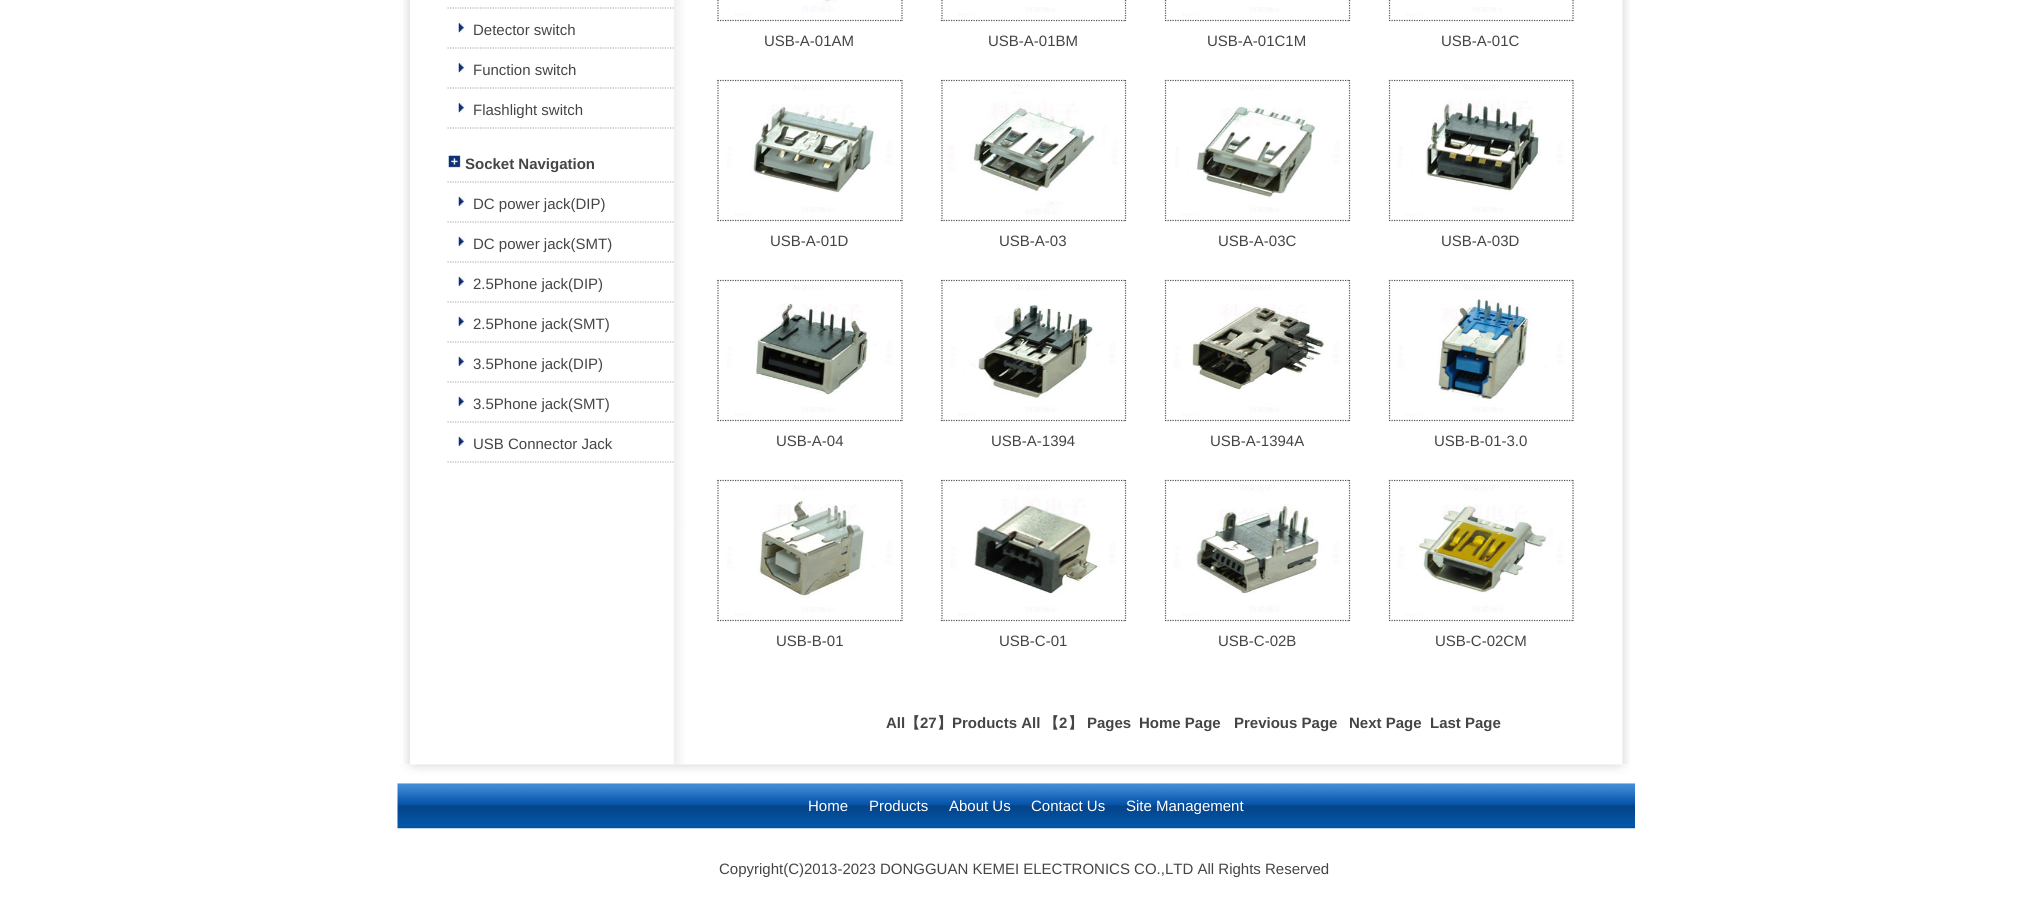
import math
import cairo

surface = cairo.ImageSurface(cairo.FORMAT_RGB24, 2031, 907)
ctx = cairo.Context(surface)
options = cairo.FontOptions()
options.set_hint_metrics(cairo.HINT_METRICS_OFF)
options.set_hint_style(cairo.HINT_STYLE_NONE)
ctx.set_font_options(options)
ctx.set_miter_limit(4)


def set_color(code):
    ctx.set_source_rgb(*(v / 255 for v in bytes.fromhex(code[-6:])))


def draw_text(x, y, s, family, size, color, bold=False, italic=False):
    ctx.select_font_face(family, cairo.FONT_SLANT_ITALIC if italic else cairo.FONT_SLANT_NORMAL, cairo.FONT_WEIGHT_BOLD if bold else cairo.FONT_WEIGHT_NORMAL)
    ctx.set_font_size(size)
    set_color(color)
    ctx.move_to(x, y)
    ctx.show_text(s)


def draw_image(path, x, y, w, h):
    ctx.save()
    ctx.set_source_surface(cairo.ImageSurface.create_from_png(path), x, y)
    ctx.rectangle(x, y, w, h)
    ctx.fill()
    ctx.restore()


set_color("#ffffff")
ctx.paint()
draw_image("assets/img1.png", 403, 0, 7, 765)
ctx.new_path()
ctx.move_to(447.5, 8)
ctx.line_to(674, 8)
set_color("#b3b3b3")
ctx.set_line_width(1.2)
ctx.set_dash([1.25, 1.25])
ctx.stroke()
ctx.new_path()
ctx.move_to(447.5, 48)
ctx.line_to(674, 48)
ctx.stroke()
draw_image("assets/img2.png", 458, 21, 7, 12)
draw_text(473, 35, "Detector switch", "Liberation Sans", 15, "#454545")
ctx.new_path()
ctx.move_to(447.5, 88)
ctx.line_to(674, 88)
set_color("#b3b3b3")
ctx.stroke()
draw_image("assets/img2.png", 458, 61, 7, 12)
draw_text(473, 75, "Function switch", "Liberation Sans", 15, "#454545")
ctx.new_path()
ctx.move_to(447.5, 128)
ctx.line_to(674, 128)
set_color("#b3b3b3")
ctx.stroke()
draw_image("assets/img2.png", 458, 101, 7, 12)
draw_text(473, 115, "Flashlight switch", "Liberation Sans", 15, "#454545")
ctx.new_path()
ctx.move_to(447.5, 182)
ctx.line_to(674, 182)
set_color("#b3b3b3")
ctx.stroke()
draw_image("assets/img3.png", 447, 155, 14, 13)
draw_text(465, 169, "Socket Navigation", "Liberation Sans", 15, "#454545", bold=True)
ctx.new_path()
ctx.move_to(447.5, 222)
ctx.line_to(674, 222)
set_color("#b3b3b3")
ctx.stroke()
draw_image("assets/img4.png", 458, 195, 7, 13)
draw_text(473, 209, "DC power jack(DIP)", "Liberation Sans", 15, "#454545")
ctx.new_path()
ctx.move_to(447.5, 262)
ctx.line_to(674, 262)
set_color("#b3b3b3")
ctx.stroke()
draw_image("assets/img4.png", 458, 235, 7, 13)
draw_text(473, 249, "DC power jack(SMT)", "Liberation Sans", 15, "#454545")
ctx.new_path()
ctx.move_to(447.5, 302)
ctx.line_to(674, 302)
set_color("#b3b3b3")
ctx.stroke()
draw_image("assets/img4.png", 458, 275, 7, 13)
draw_text(473, 289, "2.5Phone jack(DIP)", "Liberation Sans", 15, "#454545")
ctx.new_path()
ctx.move_to(447.5, 342)
ctx.line_to(674, 342)
set_color("#b3b3b3")
ctx.stroke()
draw_image("assets/img4.png", 458, 315, 7, 13)
draw_text(473, 329, "2.5Phone jack(SMT)", "Liberation Sans", 15, "#454545")
ctx.new_path()
ctx.move_to(447.5, 382)
ctx.line_to(674, 382)
set_color("#b3b3b3")
ctx.stroke()
draw_image("assets/img5.png", 458, 355, 7, 13)
draw_text(473, 369, "3.5Phone jack(DIP)", "Liberation Sans", 15, "#454545")
ctx.new_path()
ctx.move_to(447.5, 422)
ctx.line_to(674, 422)
set_color("#b3b3b3")
ctx.stroke()
draw_image("assets/img4.png", 458, 395, 7, 13)
draw_text(473, 409, "3.5Phone jack(SMT)", "Liberation Sans", 15, "#454545")
ctx.new_path()
ctx.move_to(447.5, 462)
ctx.line_to(674, 462)
set_color("#b3b3b3")
ctx.stroke()
draw_image("assets/img4.png", 458, 435, 7, 13)
draw_text(473, 449, "USB Connector Jack", "Liberation Sans", 15, "#454545")
draw_image("assets/img6.png", 673, 0, 12, 765)
ctx.new_path()
ctx.move_to(902, -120)
ctx.line_to(902, 21)
set_color("#545454")
ctx.stroke()
ctx.new_path()
ctx.move_to(717.5, 20.5)
ctx.line_to(902.5, 20.5)
ctx.stroke()
ctx.new_path()
ctx.move_to(718, -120)
ctx.line_to(718, 21)
ctx.stroke()
draw_image("assets/img7.png", 734, 0, 104, 16)
draw_text(764, 46, "USB-A-01AM", "Liberation Sans", 15, "#454545")
ctx.new_path()
ctx.move_to(1125.5, -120)
ctx.line_to(1125.5, 21)
set_color("#545454")
ctx.stroke()
ctx.new_path()
ctx.move_to(941, 20.5)
ctx.line_to(1126, 20.5)
ctx.stroke()
ctx.new_path()
ctx.move_to(942, -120)
ctx.line_to(942, 21)
ctx.stroke()
draw_image("assets/img8.png", 958, 7, 99, 9)
draw_text(988, 46, "USB-A-01BM", "Liberation Sans", 15, "#454545")
ctx.new_path()
ctx.move_to(1349.5, -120)
ctx.line_to(1349.5, 21)
set_color("#545454")
ctx.stroke()
ctx.new_path()
ctx.move_to(1165, 20.5)
ctx.line_to(1350, 20.5)
ctx.stroke()
ctx.new_path()
ctx.move_to(1165.5, -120)
ctx.line_to(1165.5, 21)
ctx.stroke()
draw_image("assets/img9.png", 1182, 7, 99, 9)
draw_text(1207, 46, "USB-A-01C1M", "Liberation Sans", 15, "#454545")
ctx.new_path()
ctx.move_to(1573, -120)
ctx.line_to(1573, 21)
set_color("#545454")
ctx.stroke()
ctx.new_path()
ctx.move_to(1389, 20.5)
ctx.line_to(1574, 20.5)
ctx.stroke()
ctx.new_path()
ctx.move_to(1389.5, -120)
ctx.line_to(1389.5, 21)
ctx.stroke()
draw_image("assets/img10.png", 1406, 7, 96, 9)
draw_text(1441, 46, "USB-A-01C", "Liberation Sans", 15, "#454545")
ctx.new_path()
ctx.move_to(717.5, 80.5)
ctx.line_to(902.5, 80.5)
set_color("#545454")
ctx.stroke()
ctx.new_path()
ctx.move_to(902, 80)
ctx.line_to(902, 221)
ctx.stroke()
ctx.new_path()
ctx.move_to(717.5, 220.5)
ctx.line_to(902.5, 220.5)
ctx.stroke()
ctx.new_path()
ctx.move_to(718, 80)
ctx.line_to(718, 221)
ctx.stroke()
draw_image("assets/img11.png", 727, 84, 166, 132)
draw_text(770, 246, "USB-A-01D", "Liberation Sans", 15, "#454545")
ctx.new_path()
ctx.move_to(941, 80.5)
ctx.line_to(1126, 80.5)
set_color("#545454")
ctx.stroke()
ctx.new_path()
ctx.move_to(1125.5, 80)
ctx.line_to(1125.5, 221)
ctx.stroke()
ctx.new_path()
ctx.move_to(941, 220.5)
ctx.line_to(1126, 220.5)
ctx.stroke()
ctx.new_path()
ctx.move_to(942, 80)
ctx.line_to(942, 221)
ctx.stroke()
draw_image("assets/img12.png", 947, 84, 171, 131)
draw_text(999, 246, "USB-A-03", "Liberation Sans", 15, "#454545")
ctx.new_path()
ctx.move_to(1165, 80.5)
ctx.line_to(1350, 80.5)
set_color("#545454")
ctx.stroke()
ctx.new_path()
ctx.move_to(1349.5, 80)
ctx.line_to(1349.5, 221)
ctx.stroke()
ctx.new_path()
ctx.move_to(1165, 220.5)
ctx.line_to(1350, 220.5)
ctx.stroke()
ctx.new_path()
ctx.move_to(1165.5, 80)
ctx.line_to(1165.5, 221)
ctx.stroke()
draw_image("assets/img13.png", 1175, 84, 165, 132)
draw_text(1218, 246, "USB-A-03C", "Liberation Sans", 15, "#454545")
ctx.new_path()
ctx.move_to(1389, 80.5)
ctx.line_to(1574, 80.5)
set_color("#545454")
ctx.stroke()
ctx.new_path()
ctx.move_to(1573, 80)
ctx.line_to(1573, 221)
ctx.stroke()
ctx.new_path()
ctx.move_to(1389, 220.5)
ctx.line_to(1574, 220.5)
ctx.stroke()
ctx.new_path()
ctx.move_to(1389.5, 80)
ctx.line_to(1389.5, 221)
ctx.stroke()
draw_image("assets/img14.png", 1398, 84, 166, 132)
draw_text(1441, 246, "USB-A-03D", "Liberation Sans", 15, "#454545")
ctx.new_path()
ctx.move_to(717.5, 280.5)
ctx.line_to(902.5, 280.5)
set_color("#545454")
ctx.stroke()
ctx.new_path()
ctx.move_to(902, 280)
ctx.line_to(902, 421)
ctx.stroke()
ctx.new_path()
ctx.move_to(717.5, 420.5)
ctx.line_to(902.5, 420.5)
ctx.stroke()
ctx.new_path()
ctx.move_to(718, 280)
ctx.line_to(718, 421)
ctx.stroke()
draw_image("assets/img15.png", 727, 284, 166, 132)
draw_text(776, 446, "USB-A-04", "Liberation Sans", 15, "#454545")
ctx.new_path()
ctx.move_to(941, 280.5)
ctx.line_to(1126, 280.5)
set_color("#545454")
ctx.stroke()
ctx.new_path()
ctx.move_to(1125.5, 280)
ctx.line_to(1125.5, 421)
ctx.stroke()
ctx.new_path()
ctx.move_to(941, 420.5)
ctx.line_to(1126, 420.5)
ctx.stroke()
ctx.new_path()
ctx.move_to(942, 280)
ctx.line_to(942, 421)
ctx.stroke()
draw_image("assets/img16.png", 950, 284, 166, 132)
draw_text(991, 446, "USB-A-1394", "Liberation Sans", 15, "#454545")
ctx.new_path()
ctx.move_to(1165, 280.5)
ctx.line_to(1350, 280.5)
set_color("#545454")
ctx.stroke()
ctx.new_path()
ctx.move_to(1349.5, 280)
ctx.line_to(1349.5, 421)
ctx.stroke()
ctx.new_path()
ctx.move_to(1165, 420.5)
ctx.line_to(1350, 420.5)
ctx.stroke()
ctx.new_path()
ctx.move_to(1165.5, 280)
ctx.line_to(1165.5, 421)
ctx.stroke()
draw_image("assets/img17.png", 1174, 284, 166, 132)
draw_text(1210, 446, "USB-A-1394A", "Liberation Sans", 15, "#454545")
ctx.new_path()
ctx.move_to(1389, 280.5)
ctx.line_to(1574, 280.5)
set_color("#545454")
ctx.stroke()
ctx.new_path()
ctx.move_to(1573, 280)
ctx.line_to(1573, 421)
ctx.stroke()
ctx.new_path()
ctx.move_to(1389, 420.5)
ctx.line_to(1574, 420.5)
ctx.stroke()
ctx.new_path()
ctx.move_to(1389.5, 280)
ctx.line_to(1389.5, 421)
ctx.stroke()
draw_image("assets/img18.png", 1398, 284, 166, 132)
draw_text(1434, 446, "USB-B-01-3.0", "Liberation Sans", 15, "#454545")
ctx.new_path()
ctx.move_to(717.5, 480.5)
ctx.line_to(902.5, 480.5)
set_color("#545454")
ctx.stroke()
ctx.new_path()
ctx.move_to(902, 480)
ctx.line_to(902, 621)
ctx.stroke()
ctx.new_path()
ctx.move_to(717.5, 620.5)
ctx.line_to(902.5, 620.5)
ctx.stroke()
ctx.new_path()
ctx.move_to(718, 480)
ctx.line_to(718, 621)
ctx.stroke()
draw_image("assets/img19.png", 727, 484, 166, 132)
draw_text(776, 646, "USB-B-01", "Liberation Sans", 15, "#454545")
ctx.new_path()
ctx.move_to(941, 480.5)
ctx.line_to(1126, 480.5)
set_color("#545454")
ctx.stroke()
ctx.new_path()
ctx.move_to(1125.5, 480)
ctx.line_to(1125.5, 621)
ctx.stroke()
ctx.new_path()
ctx.move_to(941, 620.5)
ctx.line_to(1126, 620.5)
ctx.stroke()
ctx.new_path()
ctx.move_to(942, 480)
ctx.line_to(942, 621)
ctx.stroke()
draw_image("assets/img20.png", 950, 484, 166, 132)
draw_text(999, 646, "USB-C-01", "Liberation Sans", 15, "#454545")
ctx.new_path()
ctx.move_to(1165, 480.5)
ctx.line_to(1350, 480.5)
set_color("#545454")
ctx.stroke()
ctx.new_path()
ctx.move_to(1349.5, 480)
ctx.line_to(1349.5, 621)
ctx.stroke()
ctx.new_path()
ctx.move_to(1165, 620.5)
ctx.line_to(1350, 620.5)
ctx.stroke()
ctx.new_path()
ctx.move_to(1165.5, 480)
ctx.line_to(1165.5, 621)
ctx.stroke()
draw_image("assets/img21.png", 1174, 484, 166, 132)
draw_text(1218, 646, "USB-C-02B", "Liberation Sans", 15, "#454545")
ctx.new_path()
ctx.move_to(1389, 480.5)
ctx.line_to(1574, 480.5)
set_color("#545454")
ctx.stroke()
ctx.new_path()
ctx.move_to(1573, 480)
ctx.line_to(1573, 621)
ctx.stroke()
ctx.new_path()
ctx.move_to(1389, 620.5)
ctx.line_to(1574, 620.5)
ctx.stroke()
ctx.new_path()
ctx.move_to(1389.5, 480)
ctx.line_to(1389.5, 621)
ctx.stroke()
draw_image("assets/img22.png", 1398, 484, 166, 132)
draw_text(1435, 646, "USB-C-02CM", "Liberation Sans", 15, "#454545")
draw_text(886, 728, "All", "Liberation Sans", 15, "#454545", bold=True)
draw_text(905, 728, "【", "WenQuanYi Zen Hei", 15, "#454545", bold=True)
draw_text(920, 728, "27", "Liberation Sans", 15, "#454545", bold=True)
draw_text(937, 728, "】", "WenQuanYi Zen Hei", 15, "#454545", bold=True)
draw_text(952, 728, "Products All", "Liberation Sans", 15, "#454545", bold=True)
draw_text(1044, 728, "【", "WenQuanYi Zen Hei", 15, "#454545", bold=True)
draw_text(1059, 728, "2", "Liberation Sans", 15, "#454545", bold=True)
draw_text(1068, 728, "】", "WenQuanYi Zen Hei", 15, "#454545", bold=True)
draw_text(1087, 728, "Pages", "Liberation Sans", 15, "#454545", bold=True)
draw_text(1139, 728, "Home Page", "Liberation Sans", 15, "#454545", bold=True)
draw_text(1234, 728, "Previous Page", "Liberation Sans", 15, "#454545", bold=True)
draw_text(1349, 728, "Next Page", "Liberation Sans", 15, "#454545", bold=True)
draw_text(1430, 728, "Last Page", "Liberation Sans", 15, "#454545", bold=True)
draw_image("assets/img23.png", 1622, 0, 8, 765)
draw_image("assets/img25.png", 397, 783, 1238, 46)
draw_image("assets/img24.png", 397, 764, 1238, 20)
draw_text(808, 811, "Home", "Liberation Sans", 15, "#ffffff")
draw_text(869, 811, "Products", "Liberation Sans", 15, "#ffffff")
draw_text(949, 811, "About Us", "Liberation Sans", 15, "#ffffff")
draw_text(1031, 811, "Contact Us", "Liberation Sans", 15, "#ffffff")
draw_text(1126, 811, "Site Management", "Liberation Sans", 15, "#ffffff")
draw_text(719, 874, "Copyright(C)2013-2023 DONGGUAN KEMEI ELECTRONICS CO.,LTD All Rights Reserved", "Liberation Sans", 15, "#454545")
surface.write_to_png("output.png")
